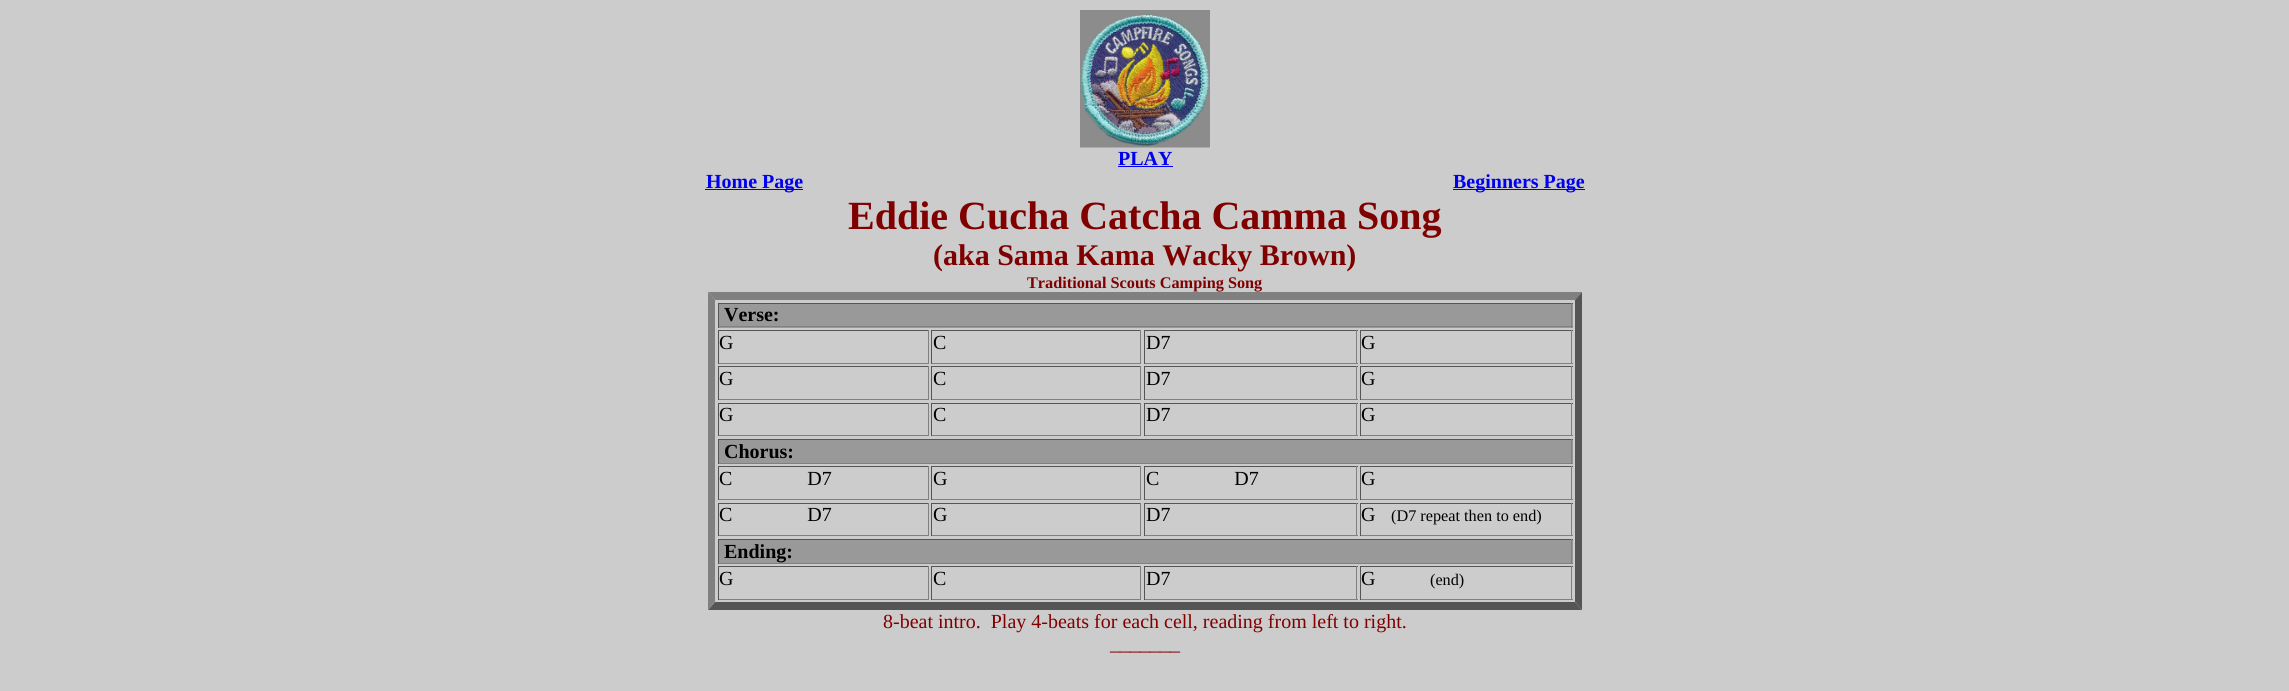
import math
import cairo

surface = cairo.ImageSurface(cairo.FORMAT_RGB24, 2289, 691)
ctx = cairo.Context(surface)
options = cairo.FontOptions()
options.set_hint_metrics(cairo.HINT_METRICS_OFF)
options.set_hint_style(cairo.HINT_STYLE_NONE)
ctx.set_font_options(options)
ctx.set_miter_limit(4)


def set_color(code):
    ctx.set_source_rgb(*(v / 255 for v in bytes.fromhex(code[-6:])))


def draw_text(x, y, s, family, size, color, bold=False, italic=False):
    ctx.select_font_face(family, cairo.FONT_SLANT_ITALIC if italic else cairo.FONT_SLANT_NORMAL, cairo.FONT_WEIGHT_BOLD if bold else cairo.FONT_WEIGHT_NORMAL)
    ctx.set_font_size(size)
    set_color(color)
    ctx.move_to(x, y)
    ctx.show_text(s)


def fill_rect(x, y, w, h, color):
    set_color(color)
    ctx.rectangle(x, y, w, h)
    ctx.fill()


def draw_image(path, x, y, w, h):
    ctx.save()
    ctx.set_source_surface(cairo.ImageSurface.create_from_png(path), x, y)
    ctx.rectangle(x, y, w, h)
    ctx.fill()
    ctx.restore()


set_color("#cccccc")
ctx.paint()
draw_image("assets/img1.png", 1080, 10, 130, 138)
draw_text(1118, 165, "PLAY", "Liberation Serif", 20, "#0000ee", bold=True)
fill_rect(1118, 166, 55, 1, "#0000ee")
fill_rect(705, 189, 98, 1, "#0000ee")
draw_text(706, 188, "Home Page", "Liberation Serif", 20, "#0000ee", bold=True)
fill_rect(1453, 189, 132, 1, "#0000ee")
draw_text(1453, 188, "Beginners Page", "Liberation Serif", 20, "#0000ee", bold=True)
draw_text(848, 229, "Eddie Cucha Catcha Camma Song", "Liberation Serif", 40, "#800000", bold=True)
draw_text(933, 265, "(aka Sama Kama Wacky Brown)", "Liberation Serif", 30, "#800000", bold=True)
draw_text(1027, 288, "Traditional Scouts Camping Song", "Liberation Serif", 16.25, "#800000", bold=True)
set_color("#808080")
ctx.new_path()
ctx.move_to(708, 292)
ctx.line_to(1582, 292)
ctx.line_to(1575, 300)
ctx.line_to(715, 300)
ctx.close_path()
ctx.fill()
set_color("#555555")
ctx.new_path()
ctx.move_to(1582, 292)
ctx.line_to(1582, 610)
ctx.line_to(1575, 602)
ctx.line_to(1575, 300)
ctx.close_path()
ctx.fill()
ctx.new_path()
ctx.move_to(1582, 610)
ctx.line_to(708, 610)
ctx.line_to(715, 602)
ctx.line_to(1575, 602)
ctx.close_path()
ctx.fill()
set_color("#808080")
ctx.new_path()
ctx.move_to(708, 610)
ctx.line_to(708, 292)
ctx.line_to(715, 300)
ctx.line_to(715, 602)
ctx.close_path()
ctx.fill()
fill_rect(719, 304, 854, 24, "#999999")
fill_rect(718, 303, 855, 1, "#555555")
fill_rect(1571, 303, 1, 25, "#808080")
fill_rect(718, 326, 855, 1, "#808080")
fill_rect(718, 303, 1, 25, "#555555")
draw_text(724, 321, "Verse:", "Liberation Serif", 20, "#000000", bold=True)
fill_rect(718, 330, 211, 1, "#555555")
fill_rect(928, 330, 1, 34, "#808080")
fill_rect(718, 363, 211, 1, "#808080")
fill_rect(718, 330, 1, 34, "#555555")
draw_text(719, 349, "G", "Liberation Serif", 20, "#000000")
fill_rect(931, 330, 210, 1, "#555555")
fill_rect(1140, 330, 1, 34, "#808080")
fill_rect(931, 363, 210, 1, "#808080")
fill_rect(931, 330, 1, 34, "#555555")
draw_text(933, 349, "C", "Liberation Serif", 20, "#000000")
fill_rect(1144, 330, 214, 1, "#555555")
fill_rect(1356, 330, 1, 34, "#808080")
fill_rect(1144, 363, 214, 1, "#808080")
fill_rect(1144, 330, 1, 34, "#555555")
draw_text(1146, 349, "D7", "Liberation Serif", 20, "#000000")
fill_rect(1360, 330, 213, 1, "#555555")
fill_rect(1571, 330, 1, 34, "#808080")
fill_rect(1360, 363, 213, 1, "#808080")
fill_rect(1360, 330, 1, 34, "#555555")
draw_text(1361, 349, "G", "Liberation Serif", 20, "#000000")
fill_rect(718, 366, 211, 1, "#555555")
fill_rect(928, 366, 1, 34, "#808080")
fill_rect(718, 399, 211, 1, "#808080")
fill_rect(718, 366, 1, 34, "#555555")
draw_text(719, 385, "G", "Liberation Serif", 20, "#000000")
fill_rect(931, 366, 210, 1, "#555555")
fill_rect(1140, 366, 1, 34, "#808080")
fill_rect(931, 399, 210, 1, "#808080")
fill_rect(931, 366, 1, 34, "#555555")
draw_text(933, 385, "C", "Liberation Serif", 20, "#000000")
fill_rect(1144, 366, 214, 1, "#555555")
fill_rect(1356, 366, 1, 34, "#808080")
fill_rect(1144, 399, 214, 1, "#808080")
fill_rect(1144, 366, 1, 34, "#555555")
draw_text(1146, 385, "D7", "Liberation Serif", 20, "#000000")
fill_rect(1360, 366, 213, 1, "#555555")
fill_rect(1571, 366, 1, 34, "#808080")
fill_rect(1360, 399, 213, 1, "#808080")
fill_rect(1360, 366, 1, 34, "#555555")
draw_text(1361, 385, "G", "Liberation Serif", 20, "#000000")
fill_rect(718, 403, 211, 1, "#555555")
fill_rect(928, 403, 1, 33, "#808080")
fill_rect(718, 435, 211, 1, "#808080")
fill_rect(718, 403, 1, 33, "#555555")
draw_text(719, 421, "G", "Liberation Serif", 20, "#000000")
fill_rect(931, 403, 210, 1, "#555555")
fill_rect(1140, 403, 1, 33, "#808080")
fill_rect(931, 435, 210, 1, "#808080")
fill_rect(931, 403, 1, 33, "#555555")
draw_text(933, 421, "C", "Liberation Serif", 20, "#000000")
fill_rect(1144, 403, 214, 1, "#555555")
fill_rect(1356, 403, 1, 33, "#808080")
fill_rect(1144, 435, 214, 1, "#808080")
fill_rect(1144, 403, 1, 33, "#555555")
draw_text(1146, 421, "D7", "Liberation Serif", 20, "#000000")
fill_rect(1360, 403, 213, 1, "#555555")
fill_rect(1571, 403, 1, 33, "#808080")
fill_rect(1360, 435, 213, 1, "#808080")
fill_rect(1360, 403, 1, 33, "#555555")
draw_text(1361, 421, "G", "Liberation Serif", 20, "#000000")
fill_rect(719, 440, 854, 23, "#999999")
fill_rect(718, 439, 855, 1, "#555555")
fill_rect(1571, 439, 1, 25, "#808080")
fill_rect(718, 463, 855, 1, "#808080")
fill_rect(718, 439, 1, 25, "#555555")
draw_text(724, 458, "Chorus:", "Liberation Serif", 20, "#000000", bold=True)
fill_rect(718, 466, 211, 1, "#555555")
fill_rect(928, 466, 1, 34, "#808080")
fill_rect(718, 499, 211, 1, "#808080")
fill_rect(718, 466, 1, 34, "#555555")
draw_text(719, 485, "C               D7", "Liberation Serif", 20, "#000000")
fill_rect(931, 466, 210, 1, "#555555")
fill_rect(1140, 466, 1, 34, "#808080")
fill_rect(931, 499, 210, 1, "#808080")
fill_rect(931, 466, 1, 34, "#555555")
draw_text(933, 485, "G", "Liberation Serif", 20, "#000000")
fill_rect(1144, 466, 214, 1, "#555555")
fill_rect(1356, 466, 1, 34, "#808080")
fill_rect(1144, 499, 214, 1, "#808080")
fill_rect(1144, 466, 1, 34, "#555555")
draw_text(1146, 485, "C               D7", "Liberation Serif", 20, "#000000")
fill_rect(1360, 466, 213, 1, "#555555")
fill_rect(1571, 466, 1, 34, "#808080")
fill_rect(1360, 499, 213, 1, "#808080")
fill_rect(1360, 466, 1, 34, "#555555")
draw_text(1361, 485, "G", "Liberation Serif", 20, "#000000")
fill_rect(718, 503, 211, 1, "#555555")
fill_rect(928, 503, 1, 33, "#808080")
fill_rect(718, 535, 211, 1, "#808080")
fill_rect(718, 503, 1, 33, "#555555")
draw_text(719, 521, "C               D7", "Liberation Serif", 20, "#000000")
fill_rect(931, 503, 210, 1, "#555555")
fill_rect(1140, 503, 1, 33, "#808080")
fill_rect(931, 535, 210, 1, "#808080")
fill_rect(931, 503, 1, 33, "#555555")
draw_text(933, 521, "G", "Liberation Serif", 20, "#000000")
fill_rect(1144, 503, 214, 1, "#555555")
fill_rect(1356, 503, 1, 33, "#808080")
fill_rect(1144, 535, 214, 1, "#808080")
fill_rect(1144, 503, 1, 33, "#555555")
draw_text(1146, 521, "D7", "Liberation Serif", 20, "#000000")
fill_rect(1360, 503, 213, 1, "#555555")
fill_rect(1571, 503, 1, 33, "#808080")
fill_rect(1360, 535, 213, 1, "#808080")
fill_rect(1360, 503, 1, 33, "#555555")
draw_text(1361, 521, "G", "Liberation Serif", 20, "#000000")
draw_text(1391, 521, "(D7 repeat then to end)", "Liberation Serif", 16.25, "#000000")
fill_rect(719, 540, 854, 23, "#999999")
fill_rect(718, 539, 855, 1, "#555555")
fill_rect(1571, 539, 1, 25, "#808080")
fill_rect(718, 563, 855, 1, "#808080")
fill_rect(718, 539, 1, 25, "#555555")
draw_text(724, 558, "Ending:", "Liberation Serif", 20, "#000000", bold=True)
fill_rect(718, 566, 211, 1, "#555555")
fill_rect(928, 566, 1, 34, "#808080")
fill_rect(718, 599, 211, 1, "#808080")
fill_rect(718, 566, 1, 34, "#555555")
draw_text(719, 585, "G", "Liberation Serif", 20, "#000000")
fill_rect(931, 566, 210, 1, "#555555")
fill_rect(1140, 566, 1, 34, "#808080")
fill_rect(931, 599, 210, 1, "#808080")
fill_rect(931, 566, 1, 34, "#555555")
draw_text(933, 585, "C", "Liberation Serif", 20, "#000000")
fill_rect(1144, 566, 214, 1, "#555555")
fill_rect(1356, 566, 1, 34, "#808080")
fill_rect(1144, 599, 214, 1, "#808080")
fill_rect(1144, 566, 1, 34, "#555555")
draw_text(1146, 585, "D7", "Liberation Serif", 20, "#000000")
fill_rect(1360, 566, 213, 1, "#555555")
fill_rect(1571, 566, 1, 34, "#808080")
fill_rect(1360, 599, 213, 1, "#808080")
fill_rect(1360, 566, 1, 34, "#555555")
draw_text(1361, 585, "G", "Liberation Serif", 20, "#000000")
draw_text(1430, 585, "(end)", "Liberation Serif", 16.25, "#000000")
draw_text(883, 628, "8-beat intro.  Play 4-beats for each cell, reading from left to right.", "Liberation Serif", 20, "#800000")
draw_text(1110, 650, "_______", "Liberation Serif", 20, "#800000")
surface.write_to_png("output.png")
